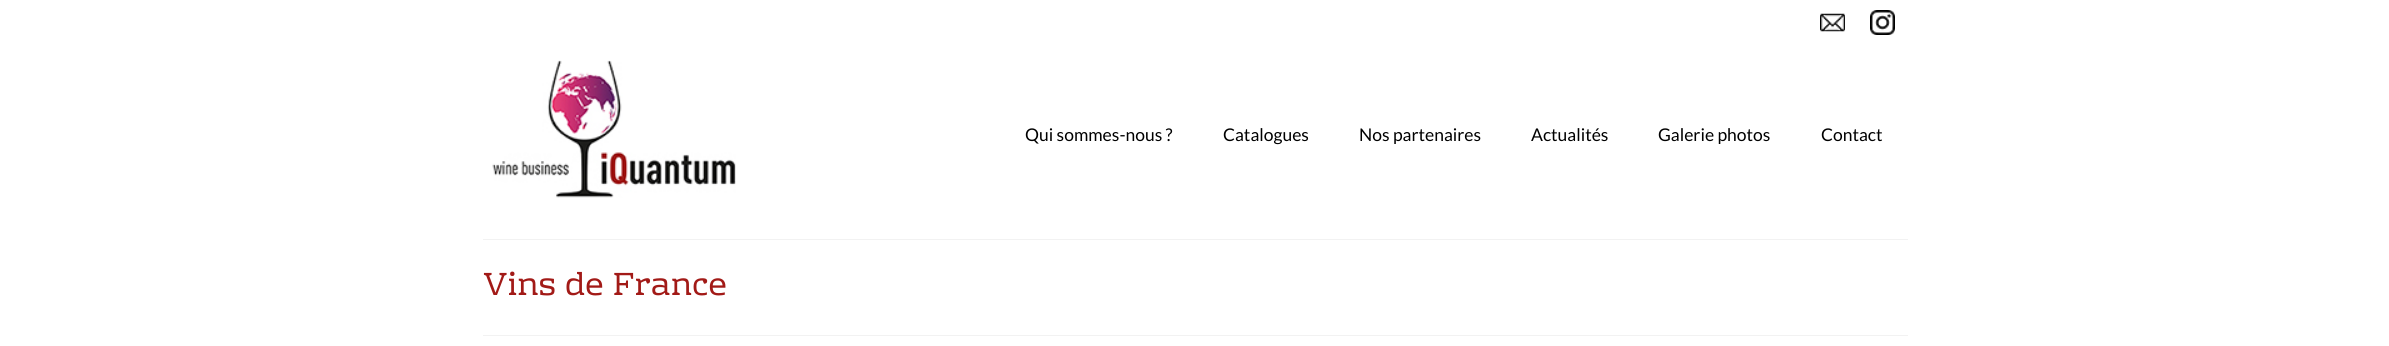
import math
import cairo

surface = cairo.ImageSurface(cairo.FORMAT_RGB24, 2389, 346)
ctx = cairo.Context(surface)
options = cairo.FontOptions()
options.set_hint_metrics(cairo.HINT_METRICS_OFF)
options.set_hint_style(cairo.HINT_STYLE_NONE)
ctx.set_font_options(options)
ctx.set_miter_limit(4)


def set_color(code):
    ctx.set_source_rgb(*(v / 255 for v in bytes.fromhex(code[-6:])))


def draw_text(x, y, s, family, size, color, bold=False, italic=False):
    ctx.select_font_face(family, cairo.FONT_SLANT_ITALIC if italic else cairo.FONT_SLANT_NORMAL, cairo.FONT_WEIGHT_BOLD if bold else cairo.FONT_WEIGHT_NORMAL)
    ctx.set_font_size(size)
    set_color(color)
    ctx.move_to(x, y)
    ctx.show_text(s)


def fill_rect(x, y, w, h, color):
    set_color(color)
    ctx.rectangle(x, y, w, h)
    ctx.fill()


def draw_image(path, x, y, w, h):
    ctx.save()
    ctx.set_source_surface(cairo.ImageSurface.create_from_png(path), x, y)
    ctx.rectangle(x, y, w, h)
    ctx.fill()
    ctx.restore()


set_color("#ffffff")
ctx.paint()
draw_image("assets/img1.png", 1820, 13, 25, 19)
draw_image("assets/img2.png", 1870, 10, 25, 25)
draw_image("assets/img3.png", 492, 60, 244, 138)
draw_text(1025, 141, "Qui sommes-nous ?", "Lato", 17.5, "#000000")
draw_text(1223, 141, "Catalogues", "Lato", 17.5, "#000000")
draw_text(1359, 141, "Nos partenaires", "Lato", 17.5, "#000000")
draw_text(1531, 141, "Actualités", "Lato", 17.5, "#000000")
draw_text(1658, 141, "Galerie photos", "Lato", 17.5, "#000000")
draw_text(1821, 141, "Contact", "Lato", 17.5, "#000000")
fill_rect(483, 239, 1425, 1, "#f2f2f2")
fill_rect(483, 335, 1425, 1, "#f2f2f2")
draw_text(483, 295, "Vins de France", "Rhodium Libre", 32.5, "#a21a17")
surface.write_to_png("output.png")
